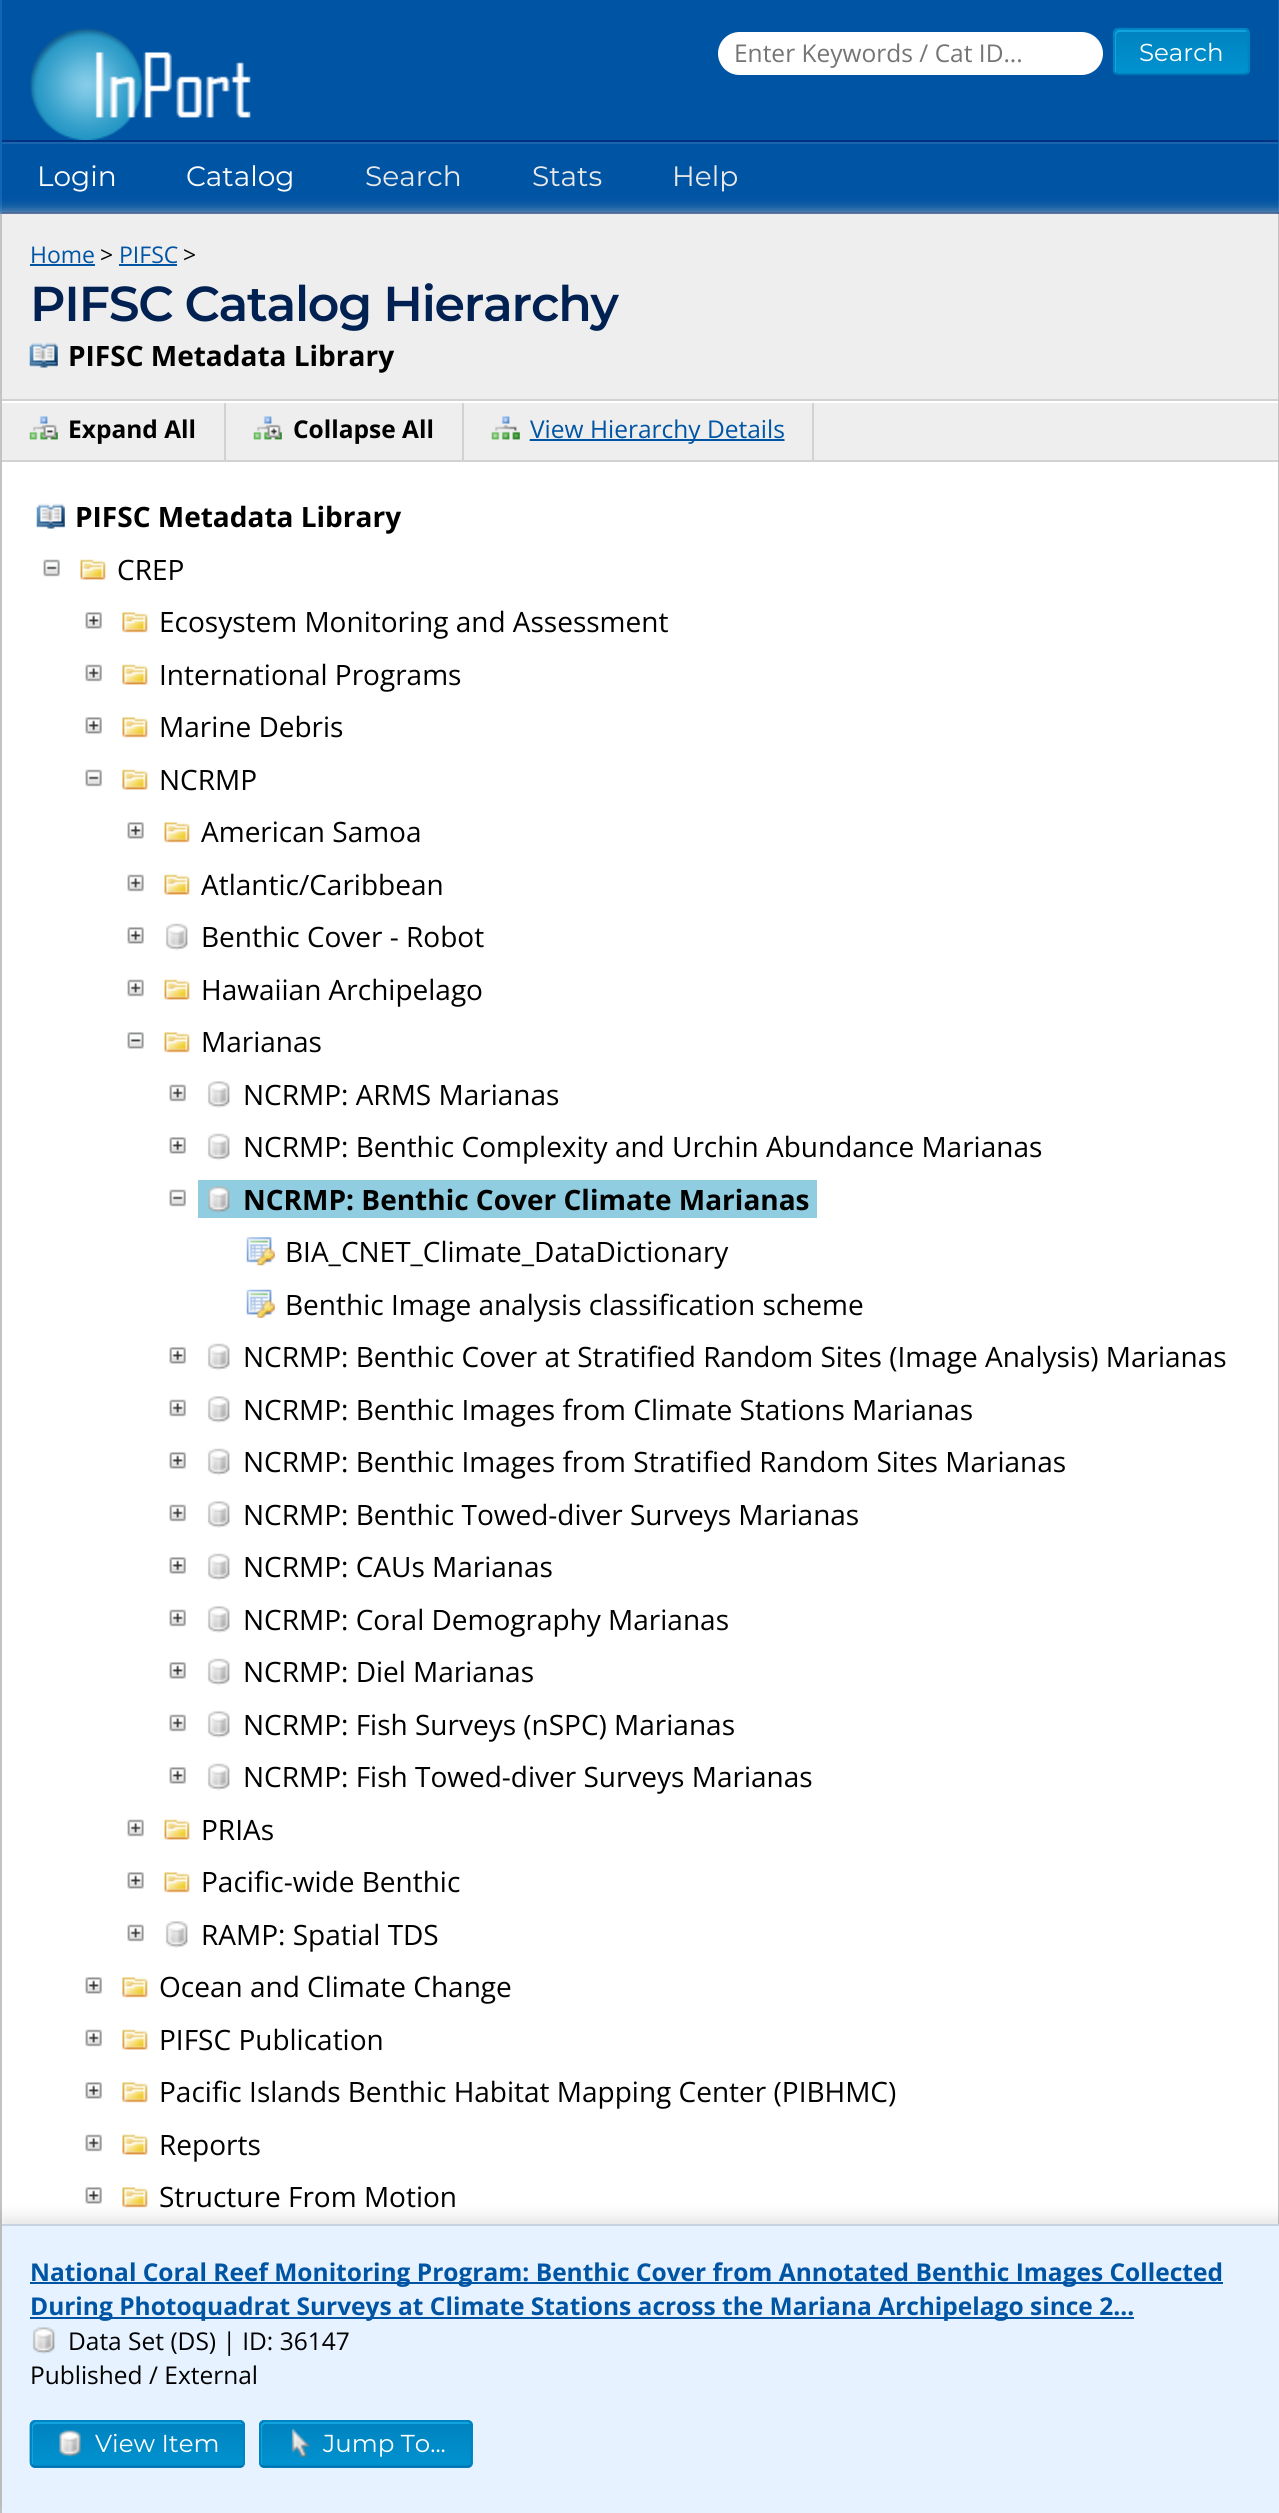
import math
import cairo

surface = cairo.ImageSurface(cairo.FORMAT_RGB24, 1279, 2513)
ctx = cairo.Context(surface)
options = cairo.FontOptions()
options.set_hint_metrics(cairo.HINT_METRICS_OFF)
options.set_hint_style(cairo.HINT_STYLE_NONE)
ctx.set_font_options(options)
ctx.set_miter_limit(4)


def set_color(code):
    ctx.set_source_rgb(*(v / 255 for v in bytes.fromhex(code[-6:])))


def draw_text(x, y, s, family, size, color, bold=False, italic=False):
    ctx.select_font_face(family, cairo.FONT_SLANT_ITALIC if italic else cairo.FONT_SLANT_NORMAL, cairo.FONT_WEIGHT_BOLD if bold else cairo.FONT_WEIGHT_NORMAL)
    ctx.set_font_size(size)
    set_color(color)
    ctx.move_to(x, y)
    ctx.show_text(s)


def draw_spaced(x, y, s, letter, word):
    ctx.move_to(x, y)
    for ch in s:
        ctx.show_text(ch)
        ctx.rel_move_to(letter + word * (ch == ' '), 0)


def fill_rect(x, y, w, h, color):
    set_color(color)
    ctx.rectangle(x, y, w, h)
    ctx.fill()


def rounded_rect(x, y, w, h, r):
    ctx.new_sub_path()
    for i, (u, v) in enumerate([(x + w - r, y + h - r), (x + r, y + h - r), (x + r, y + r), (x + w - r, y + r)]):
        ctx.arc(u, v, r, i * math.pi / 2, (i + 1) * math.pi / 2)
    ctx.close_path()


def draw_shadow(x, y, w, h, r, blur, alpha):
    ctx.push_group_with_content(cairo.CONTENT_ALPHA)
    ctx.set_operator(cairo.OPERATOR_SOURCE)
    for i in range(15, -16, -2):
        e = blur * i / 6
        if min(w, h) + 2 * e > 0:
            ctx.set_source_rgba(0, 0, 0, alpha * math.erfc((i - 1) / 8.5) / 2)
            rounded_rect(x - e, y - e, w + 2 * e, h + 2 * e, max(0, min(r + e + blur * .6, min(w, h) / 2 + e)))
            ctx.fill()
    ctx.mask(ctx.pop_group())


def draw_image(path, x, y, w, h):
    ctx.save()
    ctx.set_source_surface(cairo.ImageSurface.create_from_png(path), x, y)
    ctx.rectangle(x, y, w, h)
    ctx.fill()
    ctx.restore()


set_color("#0054a4")
ctx.paint()
fill_rect(1278, 0, 1, 214, "#1165b5")
fill_rect(0, 0, 2, 140, "#1165b5")
draw_image("assets/img1.png", 30, 28, 221, 112)
set_color("#ffffff")
rounded_rect(718, 32, 385, 43, 21.5)
ctx.fill()
draw_text(734, 62, "Enter Keywords / Cat ID...", "Open Sans", 24.5, "#757575")
ctx.save()
rounded_rect(1113, 28, 137, 47, 5)
ctx.clip()
gradient = cairo.LinearGradient(1181, 30, 1181, -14)
gradient.add_color_stop_rgba(0, 0, 0.576, 0.816, 1)
gradient.add_color_stop_rgba(1, 0, 0.51, 0.749, 1)
ctx.set_source(gradient)
ctx.rectangle(1113, 28, 137, 2)
ctx.fill()
gradient = cairo.LinearGradient(1181, 74, 1181, 30)
gradient.add_color_stop_rgba(0, 0, 0.576, 0.816, 1)
gradient.add_color_stop_rgba(1, 0, 0.51, 0.749, 1)
ctx.set_source(gradient)
ctx.rectangle(1113, 30, 137, 44)
ctx.fill()
gradient = cairo.LinearGradient(1181, 117, 1181, 74)
gradient.add_color_stop_rgba(0, 0, 0.576, 0.816, 1)
gradient.add_color_stop_rgba(1, 0, 0.51, 0.749, 1)
ctx.set_source(gradient)
ctx.rectangle(1113, 74, 137, 1)
ctx.fill()
ctx.restore()
set_color("#11a4e1")
ctx.new_path()
ctx.move_to(1120, 32)
ctx.line_to(1248, 32)
ctx.curve_to(1247, 31, 1246, 30, 1244, 30)
ctx.line_to(1119, 30)
ctx.curve_to(1117, 30, 1115, 32, 1115, 34)
ctx.line_to(1115, 70)
ctx.curve_to(1115, 71, 1115, 72, 1116, 73)
ctx.line_to(1116, 41)
ctx.curve_to(1116, 37, 1115, 32, 1120, 32)
ctx.close_path()
ctx.fill()
ctx.new_path()
ctx.move_to(1247.5, 73)
ctx.line_to(1244.5, 74.5)
ctx.line_to(1139, 74.5)
ctx.line_to(1118, 74.5)
ctx.line_to(1115, 73)
set_color("#0071ae")
ctx.set_line_width(1.8)
ctx.stroke()
ctx.new_path()
ctx.move_to(1115, 73)
ctx.curve_to(1113, 71, 1114, 66, 1114, 64)
ctx.line_to(1114, 51.5)
ctx.curve_to(1114, 24, 1109.5, 29, 1139, 29)
ctx.line_to(1244, 29)
ctx.curve_to(1250, 29, 1248.5, 36, 1248.5, 39.5)
ctx.line_to(1248.5, 58)
ctx.curve_to(1248.5, 61, 1250, 70.5, 1247.5, 73)
set_color("#0082bf")
ctx.stroke()
draw_text(1139, 61, "Search", "Montserrat", 24.5, "#ffffff")
fill_rect(0, 212, 1279, 2, "#003282")
fill_rect(0, 140, 2, 74, "#1165b5")
fill_rect(2, 142, 1276, 2, "#1a65ad")
fill_rect(2, 140, 1276, 2, "#003282")
draw_text(37, 186, "Login", "Montserrat", 28, "#ffffff")
draw_text(186, 186, "Catalog", "Montserrat", 28, "#ffffff")
draw_text(365, 186, "Search", "Montserrat", 28, "#e9e9e9")
draw_text(532, 186, "Stats", "Montserrat", 28, "#e9e9e9")
draw_text(672, 186, "Help", "Montserrat", 28, "#e9e9e9")
set_color("#bbbbbb")
draw_shadow(0, 214, 1279, 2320, 0, 7, 1)
fill_rect(2, 462, 1276, 1762, "#ffffff")
fill_rect(1278, 214, 1, 2010, "#c3c3c3")
fill_rect(0, 214, 2, 2299, "#c3c3c3")
fill_rect(2, 214, 1276, 185, "#eeeeee")
fill_rect(2, 399, 1276, 2, "#d2d2d2")
draw_text(30, 263, "Home", "Open Sans", 23, "#0054a4")
fill_rect(30, 264, 65, 2, "#0054a4")
draw_text(100, 263, ">", "Open Sans", 23, "#000000")
draw_text(119, 263, "PIFSC", "Open Sans", 23, "#0054a4")
fill_rect(119, 264, 58, 2, "#0054a4")
draw_text(183, 263, ">", "Open Sans", 23, "#000000")
ctx.select_font_face("Montserrat SemiBold")
ctx.set_font_size(49)
set_color("#002151")
draw_spaced(30, 321, "PIFSC Catalog Hierarchy", -1.25, 0)
draw_image("assets/img2.png", 29, 342, 29, 26)
draw_text(68, 366, "PIFSC Metadata Library", "Open Sans", 28, "#000000", bold=True)
fill_rect(2, 403, 1276, 57, "#eeeeee")
fill_rect(2, 401, 1276, 2, "#ffffff")
fill_rect(2, 460, 1276, 2, "#d2d2d2")
fill_rect(224, 403, 2, 57, "#d2d2d2")
draw_image("assets/img3.png", 29, 416, 29, 24)
draw_text(68, 438, "Expand All", "Open Sans", 24.5, "#000000", bold=True)
fill_rect(462, 403, 2, 57, "#d2d2d2")
draw_image("assets/img4.png", 253, 416, 29, 24)
draw_text(293, 438, "Collapse All", "Open Sans", 24.5, "#000000", bold=True)
fill_rect(812, 403, 2, 57, "#d2d2d2")
draw_image("assets/img5.png", 491, 416, 294, 25)
fill_rect(530, 439, 254, 2, "#0054a4")
draw_text(530, 438, "View Hierarchy Details", "Open Sans", 24.5, "#0054a4")
draw_image("assets/img6.png", 36, 503, 29, 26)
draw_text(75, 527, "PIFSC Metadata Library", "Open Sans", 28, "#000000", bold=True)
draw_image("assets/img7.png", 43, 559, 17, 18)
draw_image("assets/img8.png", 80, 559, 26, 21)
draw_text(117, 580, "CREP", "Open Sans", 28, "#000000")
draw_image("assets/img9.png", 85, 612, 17, 17)
draw_image("assets/img10.png", 122, 612, 26, 21)
draw_text(159, 632, "Ecosystem Monitoring and Assessment", "Open Sans", 28, "#000000")
draw_image("assets/img11.png", 85, 664, 17, 18)
draw_image("assets/img12.png", 122, 664, 26, 21)
draw_text(159, 685, "International Programs", "Open Sans", 28, "#000000")
draw_image("assets/img9.png", 85, 717, 17, 17)
draw_image("assets/img10.png", 122, 717, 26, 21)
draw_text(159, 737, "Marine Debris", "Open Sans", 28, "#000000")
draw_image("assets/img13.png", 85, 769, 17, 18)
draw_image("assets/img12.png", 122, 769, 26, 21)
draw_text(159, 790, "NCRMP", "Open Sans", 28, "#000000")
draw_image("assets/img14.png", 127, 822, 17, 17)
draw_image("assets/img15.png", 164, 822, 26, 21)
draw_text(201, 842, "American Samoa", "Open Sans", 28, "#000000")
draw_image("assets/img16.png", 127, 874, 17, 18)
draw_image("assets/img8.png", 164, 874, 26, 21)
draw_text(201, 895, "Atlantic/Caribbean", "Open Sans", 28, "#000000")
draw_image("assets/img14.png", 127, 927, 17, 17)
draw_image("assets/img17.png", 165, 923, 23, 28)
draw_text(201, 947, "Benthic Cover - Robot", "Open Sans", 28, "#000000")
draw_image("assets/img16.png", 127, 979, 17, 18)
draw_image("assets/img8.png", 164, 979, 26, 21)
draw_text(201, 1000, "Hawaiian Archipelago", "Open Sans", 28, "#000000")
draw_image("assets/img18.png", 127, 1032, 17, 17)
draw_image("assets/img15.png", 164, 1032, 26, 21)
draw_text(201, 1052, "Marianas", "Open Sans", 28, "#000000")
draw_image("assets/img11.png", 169, 1084, 17, 18)
draw_image("assets/img19.png", 207, 1081, 23, 27)
draw_text(243, 1105, "NCRMP: ARMS Marianas", "Open Sans", 28, "#000000")
draw_image("assets/img9.png", 169, 1137, 17, 17)
draw_image("assets/img17.png", 207, 1133, 23, 28)
draw_text(243, 1157, "NCRMP: Benthic Complexity and Urchin Abundance Marianas", "Open Sans", 28, "#000000")
draw_image("assets/img13.png", 169, 1189, 17, 18)
fill_rect(198, 1180, 619, 38, "#90cde0")
draw_image("assets/img20.png", 208, 1186, 22, 27)
draw_text(243, 1210, "NCRMP: Benthic Cover Climate Marianas", "Open Sans", 28, "#000000", bold=True)
draw_image("assets/img21.png", 246, 1237, 29, 29)
draw_text(285, 1262, "BIA_CNET_Climate_DataDictionary", "Open Sans", 28, "#000000")
draw_image("assets/img22.png", 246, 1289, 29, 29)
draw_text(285, 1315, "Benthic Image analysis classification scheme", "Open Sans", 28, "#000000")
draw_image("assets/img9.png", 169, 1347, 17, 17)
draw_image("assets/img17.png", 207, 1343, 23, 28)
draw_text(243, 1367, "NCRMP: Benthic Cover at Stratified Random Sites (Image Analysis) Marianas", "Open Sans", 28, "#000000")
draw_image("assets/img11.png", 169, 1399, 17, 18)
draw_image("assets/img19.png", 207, 1396, 23, 27)
draw_text(243, 1420, "NCRMP: Benthic Images from Climate Stations Marianas", "Open Sans", 28, "#000000")
draw_image("assets/img9.png", 169, 1452, 17, 17)
draw_image("assets/img17.png", 207, 1448, 23, 28)
draw_text(243, 1472, "NCRMP: Benthic Images from Stratified Random Sites Marianas", "Open Sans", 28, "#000000")
draw_image("assets/img11.png", 169, 1504, 17, 18)
draw_image("assets/img19.png", 207, 1501, 23, 27)
draw_text(243, 1525, "NCRMP: Benthic Towed-diver Surveys Marianas", "Open Sans", 28, "#000000")
draw_image("assets/img9.png", 169, 1557, 17, 17)
draw_image("assets/img17.png", 207, 1553, 23, 28)
draw_text(243, 1577, "NCRMP: CAUs Marianas", "Open Sans", 28, "#000000")
draw_image("assets/img11.png", 169, 1609, 17, 18)
draw_image("assets/img19.png", 207, 1606, 23, 27)
draw_text(243, 1630, "NCRMP: Coral Demography Marianas", "Open Sans", 28, "#000000")
draw_image("assets/img9.png", 169, 1662, 17, 17)
draw_image("assets/img17.png", 207, 1658, 23, 28)
draw_text(243, 1682, "NCRMP: Diel Marianas", "Open Sans", 28, "#000000")
draw_image("assets/img11.png", 169, 1714, 17, 18)
draw_image("assets/img19.png", 207, 1711, 23, 27)
draw_text(243, 1735, "NCRMP: Fish Surveys (nSPC) Marianas", "Open Sans", 28, "#000000")
draw_image("assets/img9.png", 169, 1767, 17, 17)
draw_image("assets/img17.png", 207, 1763, 23, 28)
draw_text(243, 1787, "NCRMP: Fish Towed-diver Surveys Marianas", "Open Sans", 28, "#000000")
draw_image("assets/img16.png", 127, 1819, 17, 18)
draw_image("assets/img8.png", 164, 1819, 26, 21)
draw_text(201, 1840, "PRIAs", "Open Sans", 28, "#000000")
draw_image("assets/img14.png", 127, 1872, 17, 17)
draw_image("assets/img15.png", 164, 1872, 26, 21)
draw_text(201, 1892, "Pacific-wide Benthic", "Open Sans", 28, "#000000")
draw_image("assets/img16.png", 127, 1924, 17, 18)
draw_image("assets/img19.png", 165, 1921, 23, 27)
draw_text(201, 1945, "RAMP: Spatial TDS", "Open Sans", 28, "#000000")
draw_image("assets/img9.png", 85, 1977, 17, 17)
draw_image("assets/img10.png", 122, 1977, 26, 21)
draw_text(159, 1997, "Ocean and Climate Change", "Open Sans", 28, "#000000")
draw_image("assets/img11.png", 85, 2029, 17, 18)
draw_image("assets/img12.png", 122, 2029, 26, 21)
draw_text(159, 2050, "PIFSC Publication", "Open Sans", 28, "#000000")
draw_image("assets/img9.png", 85, 2082, 17, 17)
draw_image("assets/img10.png", 122, 2082, 26, 21)
draw_text(159, 2102, "Pacific Islands Benthic Habitat Mapping Center (PIBHMC)", "Open Sans", 28, "#000000")
draw_image("assets/img11.png", 85, 2134, 17, 18)
draw_image("assets/img12.png", 122, 2134, 26, 21)
draw_text(159, 2155, "Reports", "Open Sans", 28, "#000000")
draw_image("assets/img9.png", 85, 2187, 17, 17)
draw_image("assets/img10.png", 122, 2187, 26, 21)
draw_text(159, 2207, "Structure From Motion", "Open Sans", 28, "#000000")
set_color("#000000")
draw_shadow(2, 2217, 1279, 289, 0, 7, 0.1)
fill_rect(2, 2226, 1277, 287, "#e6f2ff")
fill_rect(2, 2224, 1277, 2, "#c7d3e0")
fill_rect(30, 2282, 1193, 2, "#0054a4")
draw_text(30, 2281, "National Coral Reef Monitoring Program: Benthic Cover from Annotated Benthic Images Collected", "Open Sans", 24.5, "#0054a4", bold=True)
fill_rect(30, 2317, 1104, 2, "#0054a4")
draw_text(30, 2315, "During Photoquadrat Surveys at Climate Stations across the Mariana Archipelago since 2...", "Open Sans", 24.5, "#0054a4", bold=True)
draw_image("assets/img23.png", 32, 2327, 23, 27)
draw_text(68, 2350, "Data Set (DS) | ID: 36147", "Open Sans", 24.5, "#000000")
draw_text(30, 2384, "Published / External", "Open Sans", 24.5, "#000000")
ctx.save()
rounded_rect(30, 2420, 215, 48, 5)
ctx.clip()
gradient = cairo.LinearGradient(137, 2422, 137, 2378)
gradient.add_color_stop_rgba(0, 0, 0.576, 0.816, 1)
gradient.add_color_stop_rgba(1, 0, 0.51, 0.749, 1)
ctx.set_source(gradient)
ctx.rectangle(30, 2420, 215, 2)
ctx.fill()
gradient = cairo.LinearGradient(137, 2466, 137, 2422)
gradient.add_color_stop_rgba(0, 0, 0.576, 0.816, 1)
gradient.add_color_stop_rgba(1, 0, 0.51, 0.749, 1)
ctx.set_source(gradient)
ctx.rectangle(30, 2422, 215, 44)
ctx.fill()
gradient = cairo.LinearGradient(137, 2510, 137, 2466)
gradient.add_color_stop_rgba(0, 0, 0.576, 0.816, 1)
gradient.add_color_stop_rgba(1, 0, 0.51, 0.749, 1)
ctx.set_source(gradient)
ctx.rectangle(30, 2466, 215, 2)
ctx.fill()
ctx.restore()
set_color("#11a4e1")
ctx.new_path()
ctx.move_to(37, 2424)
ctx.line_to(243, 2424)
ctx.curve_to(242, 2423, 241, 2422, 239, 2422)
ctx.line_to(36, 2422)
ctx.curve_to(34, 2422, 32, 2424, 32, 2426)
ctx.line_to(32, 2462)
ctx.curve_to(32, 2463, 32, 2464, 33, 2465)
ctx.line_to(33, 2433)
ctx.curve_to(33, 2429, 32, 2424, 37, 2424)
ctx.close_path()
ctx.fill()
ctx.new_path()
ctx.move_to(243, 2465.5)
ctx.line_to(240, 2466.5)
ctx.line_to(69, 2466.5)
ctx.line_to(35, 2466.5)
ctx.line_to(32, 2465.5)
set_color("#0071ae")
ctx.stroke()
ctx.new_path()
ctx.move_to(32, 2465.5)
ctx.curve_to(31, 2464.5, 30.5, 2463.5, 30.5, 2462)
ctx.line_to(30.5, 2425.5)
ctx.curve_to(30.5, 2424.5, 31, 2423, 32, 2422.5)
ctx.curve_to(32.5, 2421.5, 34, 2421, 35, 2421)
ctx.line_to(240, 2421)
ctx.curve_to(241, 2421, 242, 2421.5, 243, 2422.5)
ctx.curve_to(243.5, 2423, 244, 2424.5, 244, 2425.5)
ctx.line_to(244, 2462)
ctx.curve_to(244, 2463.5, 243.5, 2464.5, 243, 2465.5)
set_color("#0082bf")
ctx.stroke()
draw_image("assets/img24.png", 59, 2430, 22, 27)
draw_text(95, 2452, "View Item", "Montserrat", 24.5, "#ffffff")
ctx.save()
rounded_rect(259, 2420, 214, 48, 5)
ctx.clip()
gradient = cairo.LinearGradient(366, 2422, 366, 2378)
gradient.add_color_stop_rgba(0, 0, 0.576, 0.816, 1)
gradient.add_color_stop_rgba(1, 0, 0.51, 0.749, 1)
ctx.set_source(gradient)
ctx.rectangle(259, 2420, 214, 2)
ctx.fill()
gradient = cairo.LinearGradient(366, 2466, 366, 2422)
gradient.add_color_stop_rgba(0, 0, 0.576, 0.816, 1)
gradient.add_color_stop_rgba(1, 0, 0.51, 0.749, 1)
ctx.set_source(gradient)
ctx.rectangle(259, 2422, 214, 44)
ctx.fill()
gradient = cairo.LinearGradient(366, 2510, 366, 2466)
gradient.add_color_stop_rgba(0, 0, 0.576, 0.816, 1)
gradient.add_color_stop_rgba(1, 0, 0.51, 0.749, 1)
ctx.set_source(gradient)
ctx.rectangle(259, 2466, 214, 2)
ctx.fill()
ctx.restore()
set_color("#11a4e1")
ctx.new_path()
ctx.move_to(266, 2424)
ctx.line_to(471, 2424)
ctx.curve_to(470, 2423, 469, 2422, 467, 2422)
ctx.line_to(265, 2422)
ctx.curve_to(263, 2422, 261, 2424, 261, 2426)
ctx.line_to(261, 2462)
ctx.curve_to(261, 2463, 261, 2464, 262, 2465)
ctx.line_to(262, 2433)
ctx.curve_to(262, 2429, 261, 2424, 266, 2424)
ctx.close_path()
ctx.fill()
ctx.new_path()
ctx.move_to(470.5, 2465.5)
ctx.line_to(467.5, 2466.5)
ctx.line_to(298, 2466.5)
ctx.line_to(264, 2466.5)
ctx.line_to(261, 2465.5)
set_color("#0071ae")
ctx.stroke()
ctx.new_path()
ctx.move_to(261, 2465.5)
ctx.curve_to(260.5, 2464.5, 260, 2463.5, 260, 2462)
ctx.line_to(260, 2425.5)
ctx.curve_to(260, 2424.5, 260.5, 2423, 261, 2422.5)
ctx.curve_to(262, 2421.5, 263, 2421, 264, 2421)
ctx.line_to(467, 2421)
ctx.curve_to(468.5, 2421, 469.5, 2421.5, 470.5, 2422.5)
ctx.curve_to(471, 2423, 471.5, 2424.5, 471.5, 2425.5)
ctx.line_to(471.5, 2462)
ctx.curve_to(471.5, 2463.5, 471, 2464.5, 470.5, 2465.5)
set_color("#0082bf")
ctx.stroke()
draw_image("assets/img25.png", 291, 2429, 20, 28)
draw_text(323, 2452, "Jump To...", "Montserrat", 24.5, "#ffffff")
surface.write_to_png("output.png")
